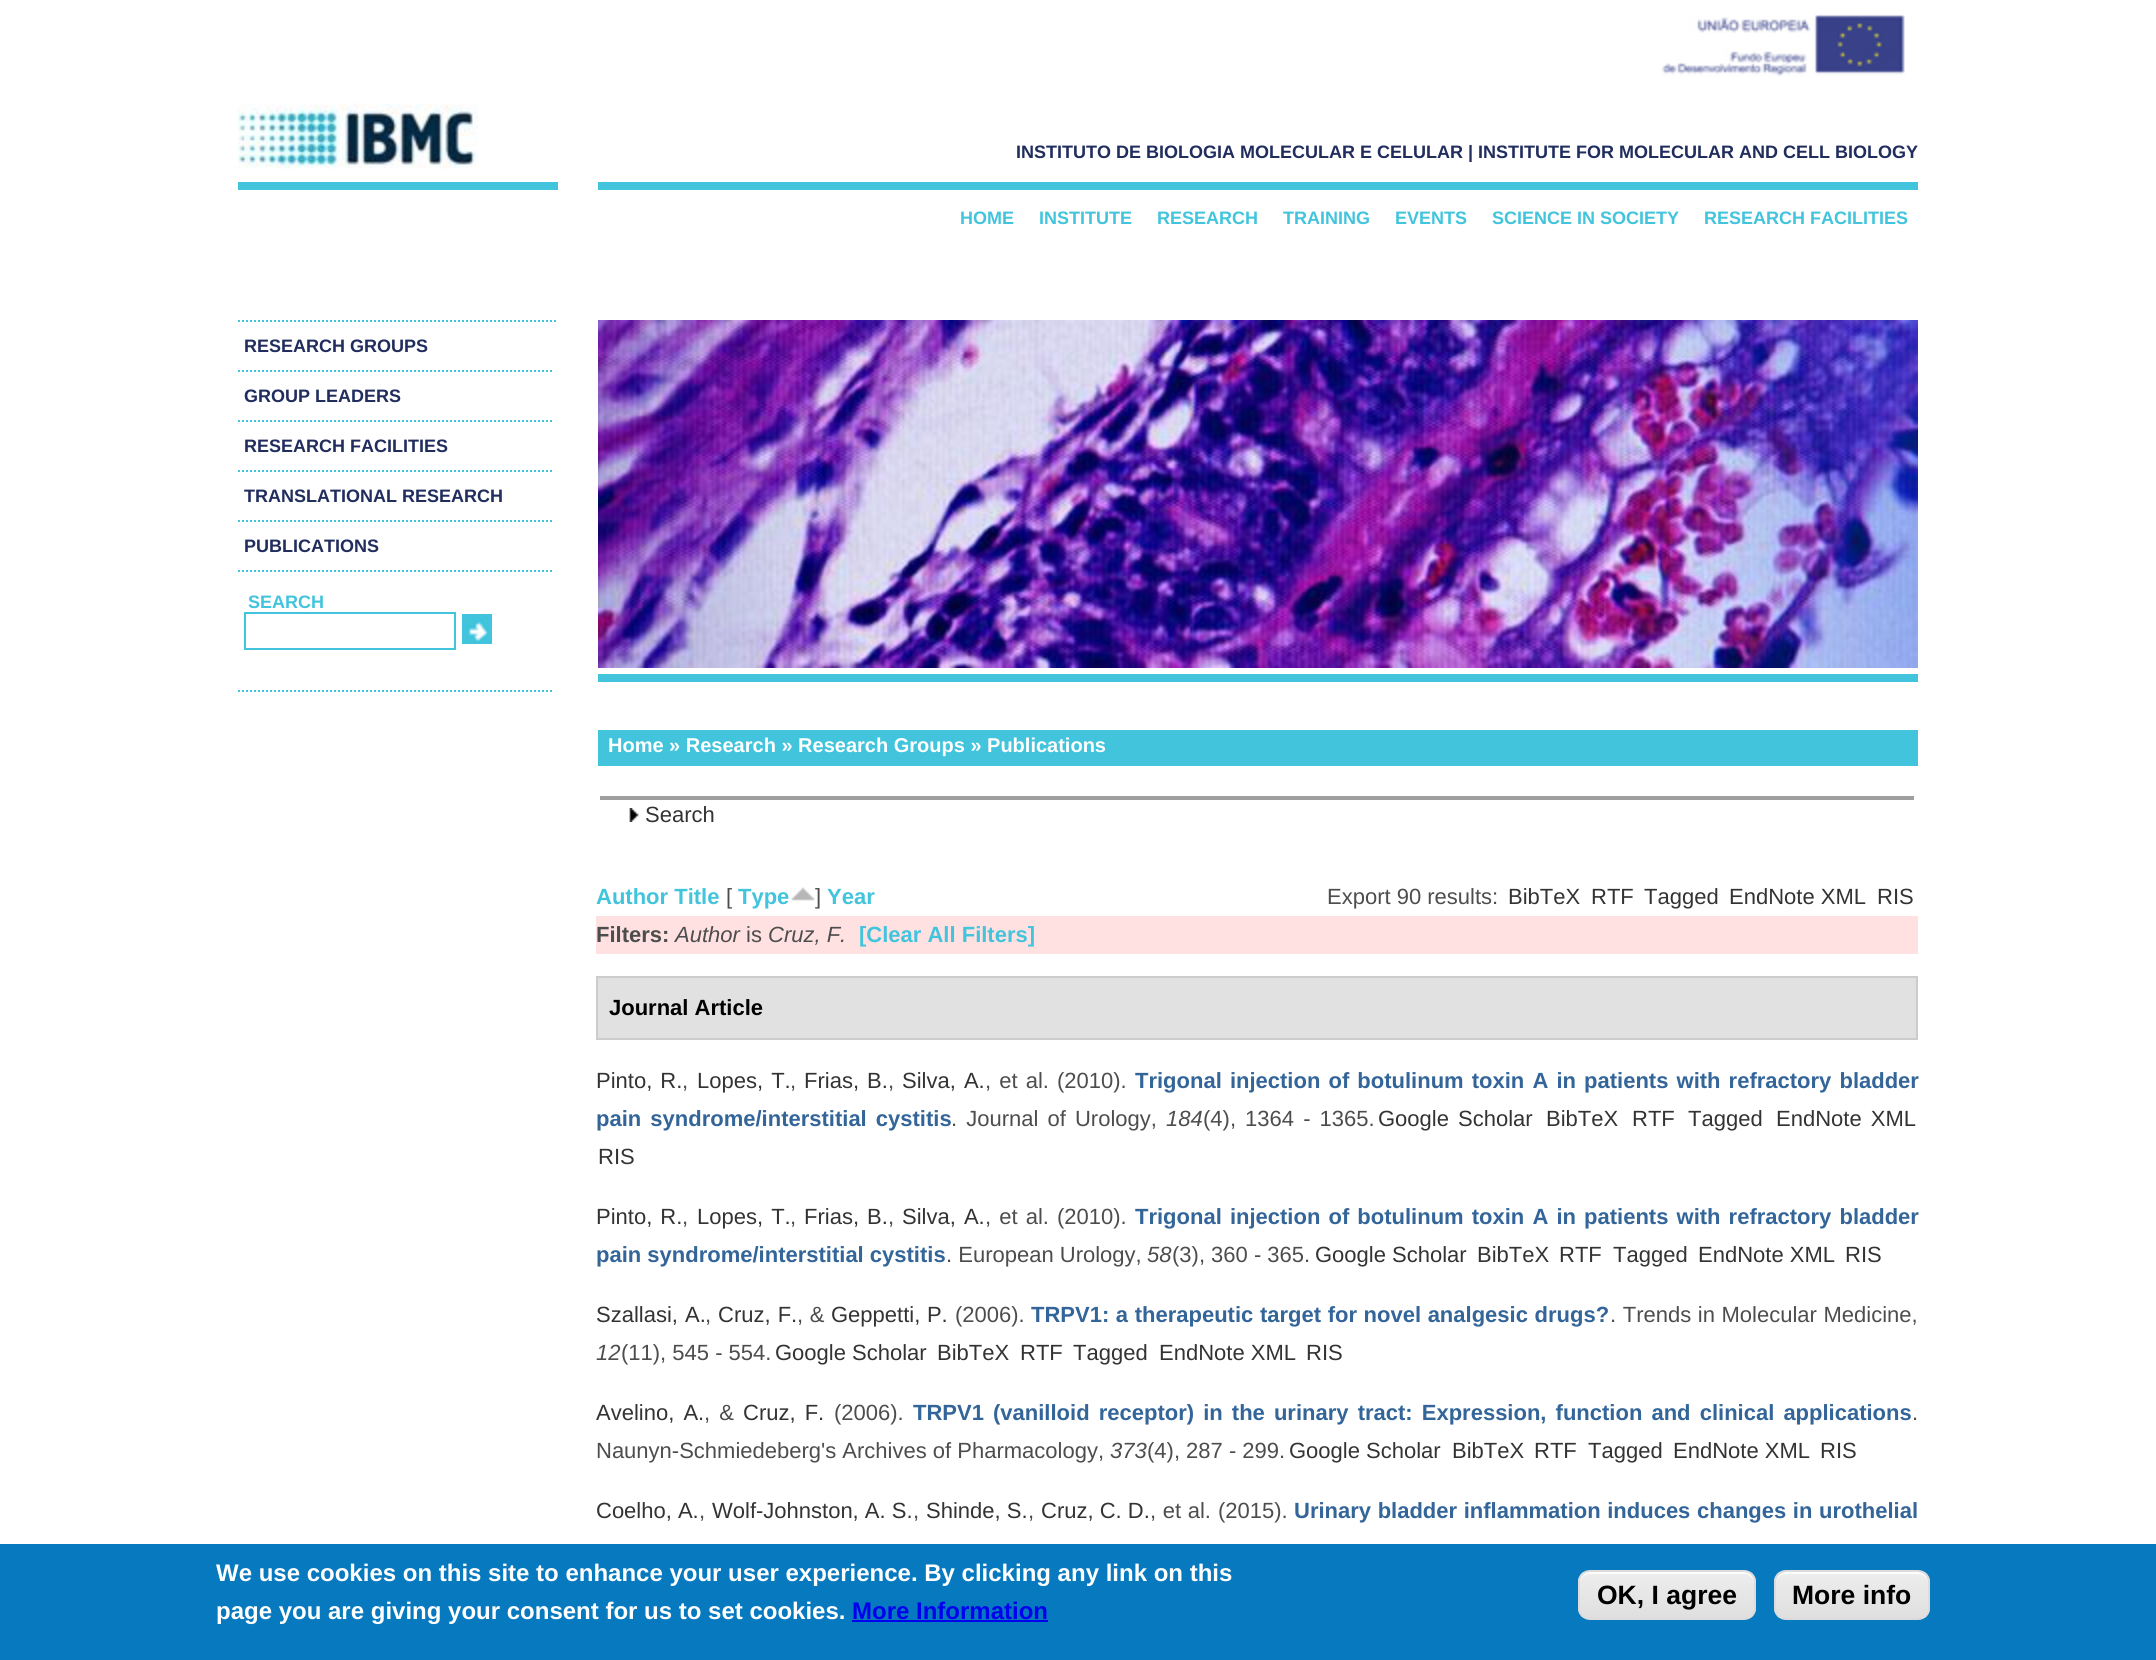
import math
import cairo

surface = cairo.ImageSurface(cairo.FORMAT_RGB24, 2156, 1660)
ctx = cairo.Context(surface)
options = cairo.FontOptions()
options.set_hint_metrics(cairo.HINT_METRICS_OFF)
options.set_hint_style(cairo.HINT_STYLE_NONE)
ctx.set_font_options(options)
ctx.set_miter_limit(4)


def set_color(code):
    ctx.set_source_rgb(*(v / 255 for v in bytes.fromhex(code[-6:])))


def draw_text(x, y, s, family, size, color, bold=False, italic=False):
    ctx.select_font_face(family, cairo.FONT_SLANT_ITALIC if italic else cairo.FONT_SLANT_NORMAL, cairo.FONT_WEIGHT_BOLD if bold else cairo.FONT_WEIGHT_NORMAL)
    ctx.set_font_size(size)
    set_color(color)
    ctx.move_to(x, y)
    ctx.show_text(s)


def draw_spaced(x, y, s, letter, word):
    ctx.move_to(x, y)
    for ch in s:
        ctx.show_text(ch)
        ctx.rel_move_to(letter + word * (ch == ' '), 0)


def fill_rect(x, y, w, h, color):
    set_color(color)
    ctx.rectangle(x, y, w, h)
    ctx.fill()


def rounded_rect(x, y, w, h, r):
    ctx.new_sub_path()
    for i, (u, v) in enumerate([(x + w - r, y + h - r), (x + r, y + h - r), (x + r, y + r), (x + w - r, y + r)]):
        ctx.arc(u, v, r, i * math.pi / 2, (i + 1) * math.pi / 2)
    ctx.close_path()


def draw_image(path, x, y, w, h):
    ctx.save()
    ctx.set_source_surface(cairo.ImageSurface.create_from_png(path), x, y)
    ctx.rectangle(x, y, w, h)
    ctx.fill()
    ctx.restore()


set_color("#ffffff")
ctx.paint()
draw_image("assets/img1.png", 1661, 14, 244, 63)
fill_rect(238, 182, 320, 8, "#41c4dc")
draw_image("assets/img2.png", 238, 103, 240, 66)
fill_rect(598, 182, 1320, 8, "#41c4dc")
draw_text(1016, 158, "INSTITUTO DE BIOLOGIA MOLECULAR E CELULAR | INSTITUTE FOR MOLECULAR AND CELL BIOLOGY", "Liberation Sans", 18, "#202d5d", bold=True)
draw_text(960, 224, "HOME", "Liberation Sans", 18, "#41c4dc", bold=True)
draw_text(1039, 224, "INSTITUTE", "Liberation Sans", 18, "#41c4dc", bold=True)
draw_text(1157, 224, "RESEARCH", "Liberation Sans", 18, "#41c4dc", bold=True)
draw_text(1283, 224, "TRAINING", "Liberation Sans", 18, "#41c4dc", bold=True)
draw_text(1395, 224, "EVENTS", "Liberation Sans", 18, "#41c4dc", bold=True)
draw_text(1492, 224, "SCIENCE IN SOCIETY", "Liberation Sans", 18, "#41c4dc", bold=True)
draw_text(1704, 224, "RESEARCH FACILITIES", "Liberation Sans", 18, "#41c4dc", bold=True)
draw_text(244, 352, "RESEARCH GROUPS", "Liberation Sans", 18, "#202d5d", bold=True)
ctx.new_path()
ctx.move_to(238, 371)
ctx.line_to(554, 371)
set_color("#41c4dc")
ctx.set_dash([2, 2])
ctx.stroke()
draw_text(244, 402, "GROUP LEADERS", "Liberation Sans", 18, "#202d5d", bold=True)
ctx.new_path()
ctx.move_to(238, 421)
ctx.line_to(554, 421)
set_color("#41c4dc")
ctx.stroke()
draw_text(244, 452, "RESEARCH FACILITIES", "Liberation Sans", 18, "#202d5d", bold=True)
ctx.new_path()
ctx.move_to(238, 471)
ctx.line_to(554, 471)
set_color("#41c4dc")
ctx.stroke()
draw_text(244, 502, "TRANSLATIONAL RESEARCH", "Liberation Sans", 18, "#202d5d", bold=True)
ctx.new_path()
ctx.move_to(238, 521)
ctx.line_to(554, 521)
set_color("#41c4dc")
ctx.stroke()
draw_text(244, 552, "PUBLICATIONS", "Liberation Sans", 18, "#202d5d", bold=True)
ctx.new_path()
ctx.move_to(238, 321)
ctx.line_to(558, 321)
set_color("#41c4dc")
ctx.stroke()
ctx.new_path()
ctx.move_to(238, 571)
ctx.line_to(554, 571)
ctx.stroke()
ctx.new_path()
ctx.move_to(238, 691)
ctx.line_to(554, 691)
ctx.stroke()
draw_text(248, 608, "SEARCH", "Liberation Sans", 18, "#41c4dc", bold=True)
ctx.rectangle(245, 613, 210, 36)
ctx.set_dash([])
ctx.stroke()
draw_image("assets/img3.png", 464, 616, 26, 26)
ctx.rectangle(463, 615, 28, 28)
ctx.stroke()
fill_rect(598, 674, 1320, 8, "#41c4dc")
draw_image("assets/img4.png", 598, 320, 1320, 348)
fill_rect(598, 730, 1320, 36, "#41c4dc")
draw_text(608, 752, "Home » Research » Research Groups » Publications", "Liberation Sans", 20, "#ffffff", bold=True)
fill_rect(600, 796, 1314, 4, "#9f9f9f")
draw_image("assets/img5.png", 629, 808, 10, 14)
draw_text(645, 822, "Search", "Liberation Sans", 22, "#333333")
draw_text(596, 904, "Author Title", "Liberation Sans", 22, "#41c4dc", bold=True)
draw_text(726, 904, "[", "Liberation Sans", 22, "#4d4d4d")
draw_text(738, 904, "Type", "Liberation Sans", 22, "#41c4dc", bold=True)
draw_image("assets/img6.png", 791, 887, 24, 14)
draw_text(815, 904, "]", "Liberation Sans", 22, "#4d4d4d")
draw_text(827, 904, "Year", "Liberation Sans", 22, "#41c4dc", bold=True)
draw_text(1327, 904, "Export 90 results:", "Liberation Sans", 22, "#4d4d4d")
draw_text(1508, 904, "BibTeX", "Liberation Sans", 22, "#333333")
draw_text(1591, 904, "RTF", "Liberation Sans", 22, "#333333")
draw_text(1644, 904, "Tagged", "Liberation Sans", 22, "#333333")
draw_text(1729, 904, "EndNote XML", "Liberation Sans", 22, "#333333")
draw_text(1877, 904, "RIS", "Liberation Sans", 22, "#333333")
fill_rect(596, 916, 1322, 38, "#ffe1e1")
draw_text(596, 942, "Filters:", "Liberation Sans", 22, "#4d4d4d", bold=True)
draw_text(675, 942, "Author", "Liberation Sans", 22, "#4d4d4d", italic=True)
draw_text(746, 942, "is", "Liberation Sans", 22, "#4d4d4d")
draw_text(768, 942, "Cruz, F.", "Liberation Sans", 22, "#4d4d4d", italic=True)
draw_text(859, 942, "[Clear All Filters]", "Liberation Sans", 22, "#41c4dc", bold=True)
set_color("#e1e1e1")
ctx.rectangle(597, 977, 1320, 62)
ctx.fill_preserve()
set_color("#cccccc")
ctx.stroke()
draw_text(609, 1015, "Journal Article", "Liberation Sans", 22, "#000000", bold=True)
ctx.select_font_face("Liberation Sans")
set_color("#333333")
draw_spaced(596, 1088, "Pinto, R.", 0, 2)
draw_text(682, 1088, ",", "Liberation Sans", 22, "#4d4d4d")
set_color("#333333")
draw_spaced(697, 1088, "Lopes, T.", 0, 2)
draw_text(790, 1088, ",", "Liberation Sans", 22, "#4d4d4d")
set_color("#333333")
draw_spaced(804, 1088, "Frias, B.", 0, 2)
draw_text(888, 1088, ",", "Liberation Sans", 22, "#4d4d4d")
set_color("#333333")
draw_spaced(902, 1088, "Silva, A.", 0, 2)
set_color("#4d4d4d")
draw_spaced(985, 1088, ", et al.", 0, 2)
draw_text(1057, 1088, "(2010).", "Liberation Sans", 22, "#4d4d4d")
ctx.select_font_face("Liberation Sans", cairo.FONT_SLANT_NORMAL, cairo.FONT_WEIGHT_BOLD)
set_color("#336599")
draw_spaced(1135, 1088, "Trigonal injection of botulinum toxin A in patients with refractory bladder", 0, 2)
draw_spaced(596, 1126, "pain syndrome/interstitial cystitis", 0, 3)
ctx.select_font_face("Liberation Sans")
set_color("#4d4d4d")
draw_spaced(951, 1126, ". Journal of Urology,", 0, 3)
draw_text(1166, 1126, "184", "Liberation Sans", 22, "#4d4d4d", italic=True)
ctx.select_font_face("Liberation Sans")
draw_spaced(1203, 1126, "(4), 1364 - 1365.", 0, 3)
set_color("#333333")
draw_spaced(1378, 1126, "Google Scholar", 0, 3)
draw_text(1546, 1126, "BibTeX", "Liberation Sans", 22, "#333333")
draw_text(1632, 1126, "RTF", "Liberation Sans", 22, "#333333")
draw_text(1688, 1126, "Tagged", "Liberation Sans", 22, "#333333")
draw_spaced(1776, 1126, "EndNote XML", 0, 3)
draw_text(598, 1164, "RIS", "Liberation Sans", 22, "#333333")
draw_spaced(596, 1224, "Pinto, R.", 0, 2)
draw_text(682, 1224, ",", "Liberation Sans", 22, "#4d4d4d")
set_color("#333333")
draw_spaced(697, 1224, "Lopes, T.", 0, 2)
draw_text(790, 1224, ",", "Liberation Sans", 22, "#4d4d4d")
set_color("#333333")
draw_spaced(804, 1224, "Frias, B.", 0, 2)
draw_text(888, 1224, ",", "Liberation Sans", 22, "#4d4d4d")
set_color("#333333")
draw_spaced(902, 1224, "Silva, A.", 0, 2)
set_color("#4d4d4d")
draw_spaced(985, 1224, ", et al.", 0, 2)
draw_text(1057, 1224, "(2010).", "Liberation Sans", 22, "#4d4d4d")
ctx.select_font_face("Liberation Sans", cairo.FONT_SLANT_NORMAL, cairo.FONT_WEIGHT_BOLD)
set_color("#336599")
draw_spaced(1135, 1224, "Trigonal injection of botulinum toxin A in patients with refractory bladder", 0, 2)
draw_text(596, 1262, "pain syndrome/interstitial cystitis", "Liberation Sans", 22, "#336599", bold=True)
draw_text(946, 1262, ". European Urology,", "Liberation Sans", 22, "#4d4d4d")
draw_text(1147, 1262, "58", "Liberation Sans", 22, "#4d4d4d", italic=True)
draw_text(1172, 1262, "(3), 360 - 365.", "Liberation Sans", 22, "#4d4d4d")
draw_text(1315, 1262, "Google Scholar", "Liberation Sans", 22, "#333333")
draw_text(1477, 1262, "BibTeX", "Liberation Sans", 22, "#333333")
draw_text(1559, 1262, "RTF", "Liberation Sans", 22, "#333333")
draw_text(1613, 1262, "Tagged", "Liberation Sans", 22, "#333333")
draw_text(1698, 1262, "EndNote XML", "Liberation Sans", 22, "#333333")
draw_text(1845, 1262, "RIS", "Liberation Sans", 22, "#333333")
draw_spaced(596, 1322, "Szallasi, A.", 0, 1)
draw_text(705, 1322, ",", "Liberation Sans", 22, "#4d4d4d")
set_color("#333333")
draw_spaced(718, 1322, "Cruz, F.", 0, 1)
set_color("#4d4d4d")
draw_spaced(797, 1322, ", &", 0, 0.5)
set_color("#333333")
draw_spaced(831, 1322, "Geppetti, P.", 0, 0.5)
draw_text(955, 1322, "(2006).", "Liberation Sans", 22, "#4d4d4d")
ctx.select_font_face("Liberation Sans", cairo.FONT_SLANT_NORMAL, cairo.FONT_WEIGHT_BOLD)
set_color("#336599")
draw_spaced(1031, 1322, "TRPV1: a therapeutic target for novel analgesic drugs?", 0, 0.5)
ctx.select_font_face("Liberation Sans")
set_color("#4d4d4d")
draw_spaced(1610, 1322, ". Trends in Molecular Medicine,", 0, 0.5)
draw_text(596, 1360, "12", "Liberation Sans", 22, "#4d4d4d", italic=True)
draw_text(621, 1360, "(11), 545 - 554.", "Liberation Sans", 22, "#4d4d4d")
draw_text(775, 1360, "Google Scholar", "Liberation Sans", 22, "#333333")
draw_text(937, 1360, "BibTeX", "Liberation Sans", 22, "#333333")
draw_text(1020, 1360, "RTF", "Liberation Sans", 22, "#333333")
draw_text(1073, 1360, "Tagged", "Liberation Sans", 22, "#333333")
draw_text(1159, 1360, "EndNote XML", "Liberation Sans", 22, "#333333")
draw_text(1306, 1360, "RIS", "Liberation Sans", 22, "#333333")
draw_spaced(596, 1420, "Avelino, A.", 0, 3)
set_color("#4d4d4d")
draw_spaced(704, 1420, ", &", 0, 3)
set_color("#333333")
draw_spaced(743, 1420, "Cruz, F.", 0, 3)
draw_text(834, 1420, "(2006).", "Liberation Sans", 22, "#4d4d4d")
ctx.select_font_face("Liberation Sans", cairo.FONT_SLANT_NORMAL, cairo.FONT_WEIGHT_BOLD)
set_color("#336599")
draw_spaced(913, 1420, "TRPV1 (vanilloid receptor) in the urinary tract: Expression, function and clinical applications", 0, 3)
draw_text(1912, 1420, ".", "Liberation Sans", 22, "#4d4d4d")
draw_text(596, 1458, "Naunyn-Schmiedeberg's Archives of Pharmacology,", "Liberation Sans", 22, "#4d4d4d")
draw_text(1110, 1458, "373", "Liberation Sans", 22, "#4d4d4d", italic=True)
draw_text(1147, 1458, "(4), 287 - 299.", "Liberation Sans", 22, "#4d4d4d")
draw_text(1289, 1458, "Google Scholar", "Liberation Sans", 22, "#333333")
draw_text(1452, 1458, "BibTeX", "Liberation Sans", 22, "#333333")
draw_text(1534, 1458, "RTF", "Liberation Sans", 22, "#333333")
draw_text(1588, 1458, "Tagged", "Liberation Sans", 22, "#333333")
draw_text(1673, 1458, "EndNote XML", "Liberation Sans", 22, "#333333")
draw_text(1820, 1458, "RIS", "Liberation Sans", 22, "#333333")
draw_text(596, 1518, "Coelho, A.", "Liberation Sans", 22, "#333333")
draw_text(699, 1518, ",", "Liberation Sans", 22, "#4d4d4d")
draw_text(712, 1518, "Wolf-Johnston, A. S.", "Liberation Sans", 22, "#333333")
draw_text(913, 1518, ",", "Liberation Sans", 22, "#4d4d4d")
draw_text(926, 1518, "Shinde, S.", "Liberation Sans", 22, "#333333")
draw_text(1028, 1518, ",", "Liberation Sans", 22, "#4d4d4d")
draw_text(1041, 1518, "Cruz, C. D.", "Liberation Sans", 22, "#333333")
set_color("#4d4d4d")
draw_spaced(1150, 1518, ", et al.", 0, 0.5)
draw_text(1218, 1518, "(2015).", "Liberation Sans", 22, "#4d4d4d")
ctx.select_font_face("Liberation Sans", cairo.FONT_SLANT_NORMAL, cairo.FONT_WEIGHT_BOLD)
set_color("#336599")
draw_spaced(1294, 1518, "Urinary bladder inflammation induces changes in urothelial", 0, 0.5)
fill_rect(0, 1544, 2156, 116, "#0779bf")
draw_text(216, 1581, "We use cookies on this site to enhance your user experience. By clicking any link on this", "Liberation Sans", 24, "#ffffff", bold=True)
draw_text(216, 1619, "page you are giving your consent for us to set cookies.", "Liberation Sans", 24, "#ffffff", bold=True)
draw_text(852, 1619, "More Information", "Liberation Sans", 24, "#0000ee", bold=True)
fill_rect(852, 1620, 196, 2, "#0000ee")
ctx.save()
rounded_rect(1578, 1570, 178, 50, 12)
ctx.clip()
gradient = cairo.LinearGradient(1667, 1572, 1667, 1618)
gradient.add_color_stop_rgba(0.05, 0.929, 0.929, 0.929, 1)
gradient.add_color_stop_rgba(1, 0.875, 0.875, 0.875, 1)
ctx.set_source(gradient)
ctx.rectangle(1578, 1572, 178, 46)
ctx.fill()
ctx.restore()
set_color("#ffffff")
ctx.new_path()
ctx.move_to(1590, 1574)
ctx.line_to(1744, 1574)
ctx.curve_to(1750, 1574, 1754, 1578, 1754, 1584)
ctx.line_to(1754, 1582)
ctx.curve_to(1754, 1576, 1750, 1572, 1744, 1572)
ctx.line_to(1590, 1572)
ctx.curve_to(1584, 1572, 1580, 1576, 1580, 1582)
ctx.line_to(1580, 1584)
ctx.curve_to(1580, 1578, 1584, 1574, 1590, 1574)
ctx.close_path()
ctx.fill()
rounded_rect(1579, 1571, 176, 48, 11)
set_color("#dcdcdc")
ctx.stroke()
draw_text(1597, 1604, "OK, I agree", "Liberation Sans", 26.5, "#000000", bold=True)
ctx.save()
rounded_rect(1774, 1570, 156, 50, 12)
ctx.clip()
gradient = cairo.LinearGradient(1852, 1572, 1852, 1618)
gradient.add_color_stop_rgba(0.05, 0.929, 0.929, 0.929, 1)
gradient.add_color_stop_rgba(1, 0.875, 0.875, 0.875, 1)
ctx.set_source(gradient)
ctx.rectangle(1774, 1572, 156, 46)
ctx.fill()
ctx.restore()
set_color("#ffffff")
ctx.new_path()
ctx.move_to(1786, 1574)
ctx.line_to(1918, 1574)
ctx.curve_to(1924, 1574, 1928, 1578, 1928, 1584)
ctx.curve_to(1928, 1567, 1908, 1572, 1896, 1572)
ctx.line_to(1808, 1572)
ctx.curve_to(1796, 1572, 1776, 1567, 1776, 1584)
ctx.curve_to(1776, 1578, 1780, 1574, 1786, 1574)
ctx.close_path()
ctx.fill()
rounded_rect(1775, 1571, 154, 48, 11)
set_color("#dcdcdc")
ctx.stroke()
draw_text(1792, 1604, "More info", "Liberation Sans", 26.5, "#000000", bold=True)
surface.write_to_png("output.png")
